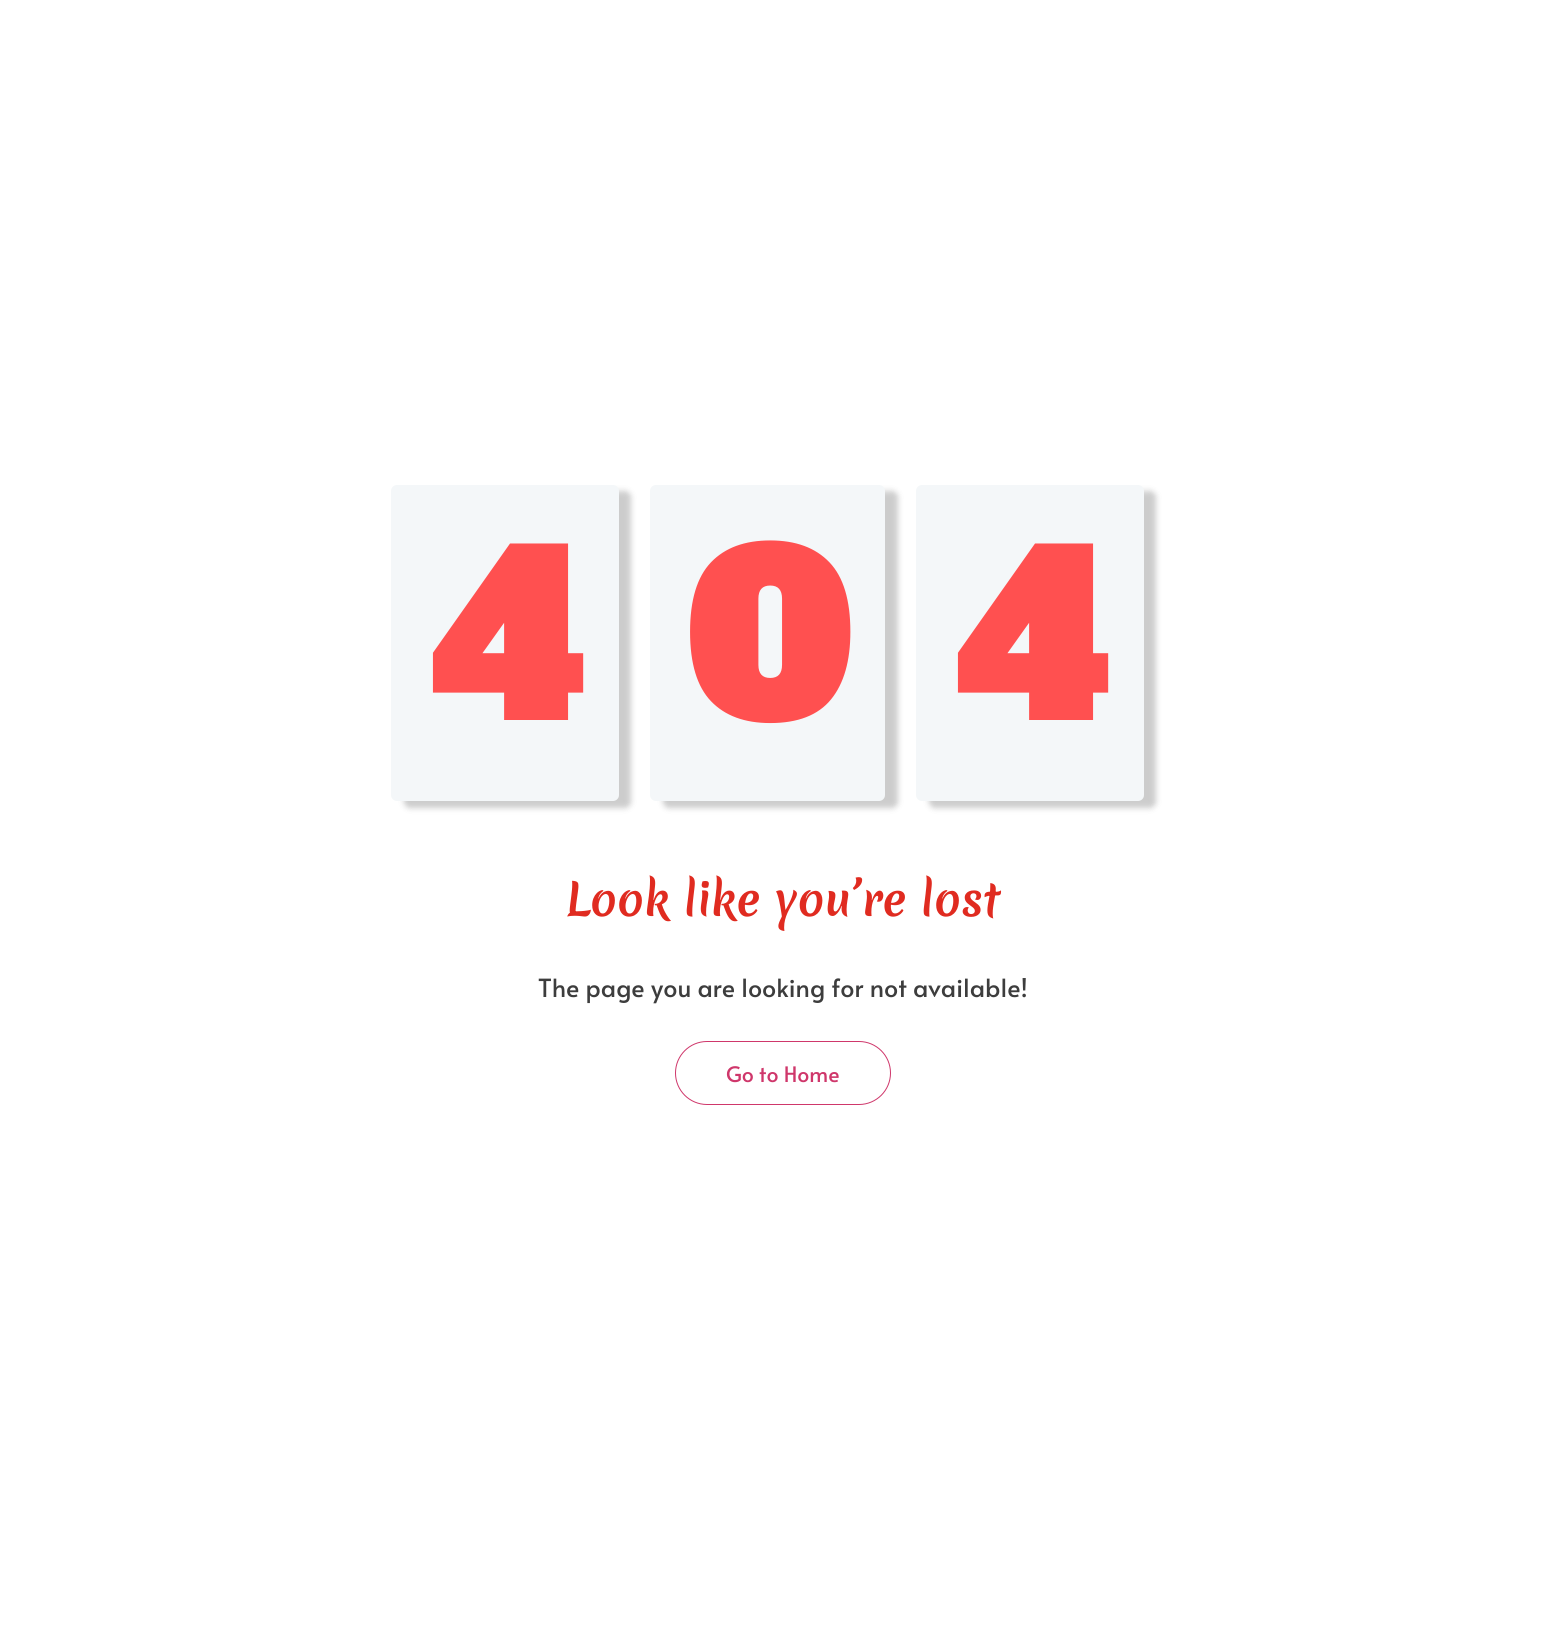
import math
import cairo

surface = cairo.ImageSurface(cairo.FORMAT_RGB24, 1566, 1625)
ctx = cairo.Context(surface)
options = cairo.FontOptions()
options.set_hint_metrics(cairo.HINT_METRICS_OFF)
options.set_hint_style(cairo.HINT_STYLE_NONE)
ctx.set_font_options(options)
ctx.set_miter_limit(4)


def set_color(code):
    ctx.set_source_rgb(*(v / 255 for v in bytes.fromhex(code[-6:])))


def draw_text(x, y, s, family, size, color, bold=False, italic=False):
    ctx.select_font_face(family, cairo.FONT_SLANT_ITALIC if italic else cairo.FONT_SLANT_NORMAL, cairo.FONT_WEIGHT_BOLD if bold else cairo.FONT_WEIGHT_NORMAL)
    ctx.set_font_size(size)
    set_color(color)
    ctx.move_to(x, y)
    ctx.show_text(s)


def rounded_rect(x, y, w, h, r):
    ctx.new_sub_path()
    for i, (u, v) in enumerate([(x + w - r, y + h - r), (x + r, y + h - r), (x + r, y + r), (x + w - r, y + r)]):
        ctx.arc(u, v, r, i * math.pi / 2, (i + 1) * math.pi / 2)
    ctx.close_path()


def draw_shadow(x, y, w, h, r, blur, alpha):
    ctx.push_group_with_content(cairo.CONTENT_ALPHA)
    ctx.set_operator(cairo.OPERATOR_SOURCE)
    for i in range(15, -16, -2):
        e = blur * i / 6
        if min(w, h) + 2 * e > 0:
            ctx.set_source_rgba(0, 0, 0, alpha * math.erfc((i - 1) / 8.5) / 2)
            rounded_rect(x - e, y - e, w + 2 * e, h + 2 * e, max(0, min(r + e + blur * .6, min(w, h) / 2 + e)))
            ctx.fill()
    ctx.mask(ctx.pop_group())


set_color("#ffffff")
ctx.paint()
set_color("#000000")
draw_shadow(404, 491, 227, 317, 6, 3, 0.2)
set_color("#f4f7f9")
rounded_rect(391, 485, 228, 316, 6)
ctx.fill()
draw_text(429, 720, "4", "Alfa Slab One", 219, "#ff5050", bold=True)
set_color("#000000")
draw_shadow(663, 491, 235, 317, 6, 3, 0.2)
set_color("#f4f7f9")
rounded_rect(650, 485, 235, 316, 6)
ctx.fill()
draw_text(687, 720, "0", "Alfa Slab One", 219, "#ff5050", bold=True)
set_color("#000000")
draw_shadow(929, 491, 227, 317, 6, 3, 0.2)
set_color("#f4f7f9")
rounded_rect(916, 485, 228, 316, 6)
ctx.fill()
draw_text(954, 720, "4", "Alfa Slab One", 219, "#ff5050", bold=True)
draw_text(566, 916, "Look like you’re lost", "Merienda", 43.9, "#e02b20", bold=True)
draw_text(538, 997, "The page you are looking for not available!", "Alata", 25, "#3d3d3d")
rounded_rect(675.5, 1041.5, 215, 63, 31.5)
set_color("#cf376b")
ctx.set_line_width(1)
ctx.stroke()
draw_text(726, 1082, "Go to Home", "Alata", 21.25, "#cf376b")
surface.write_to_png("output.png")
